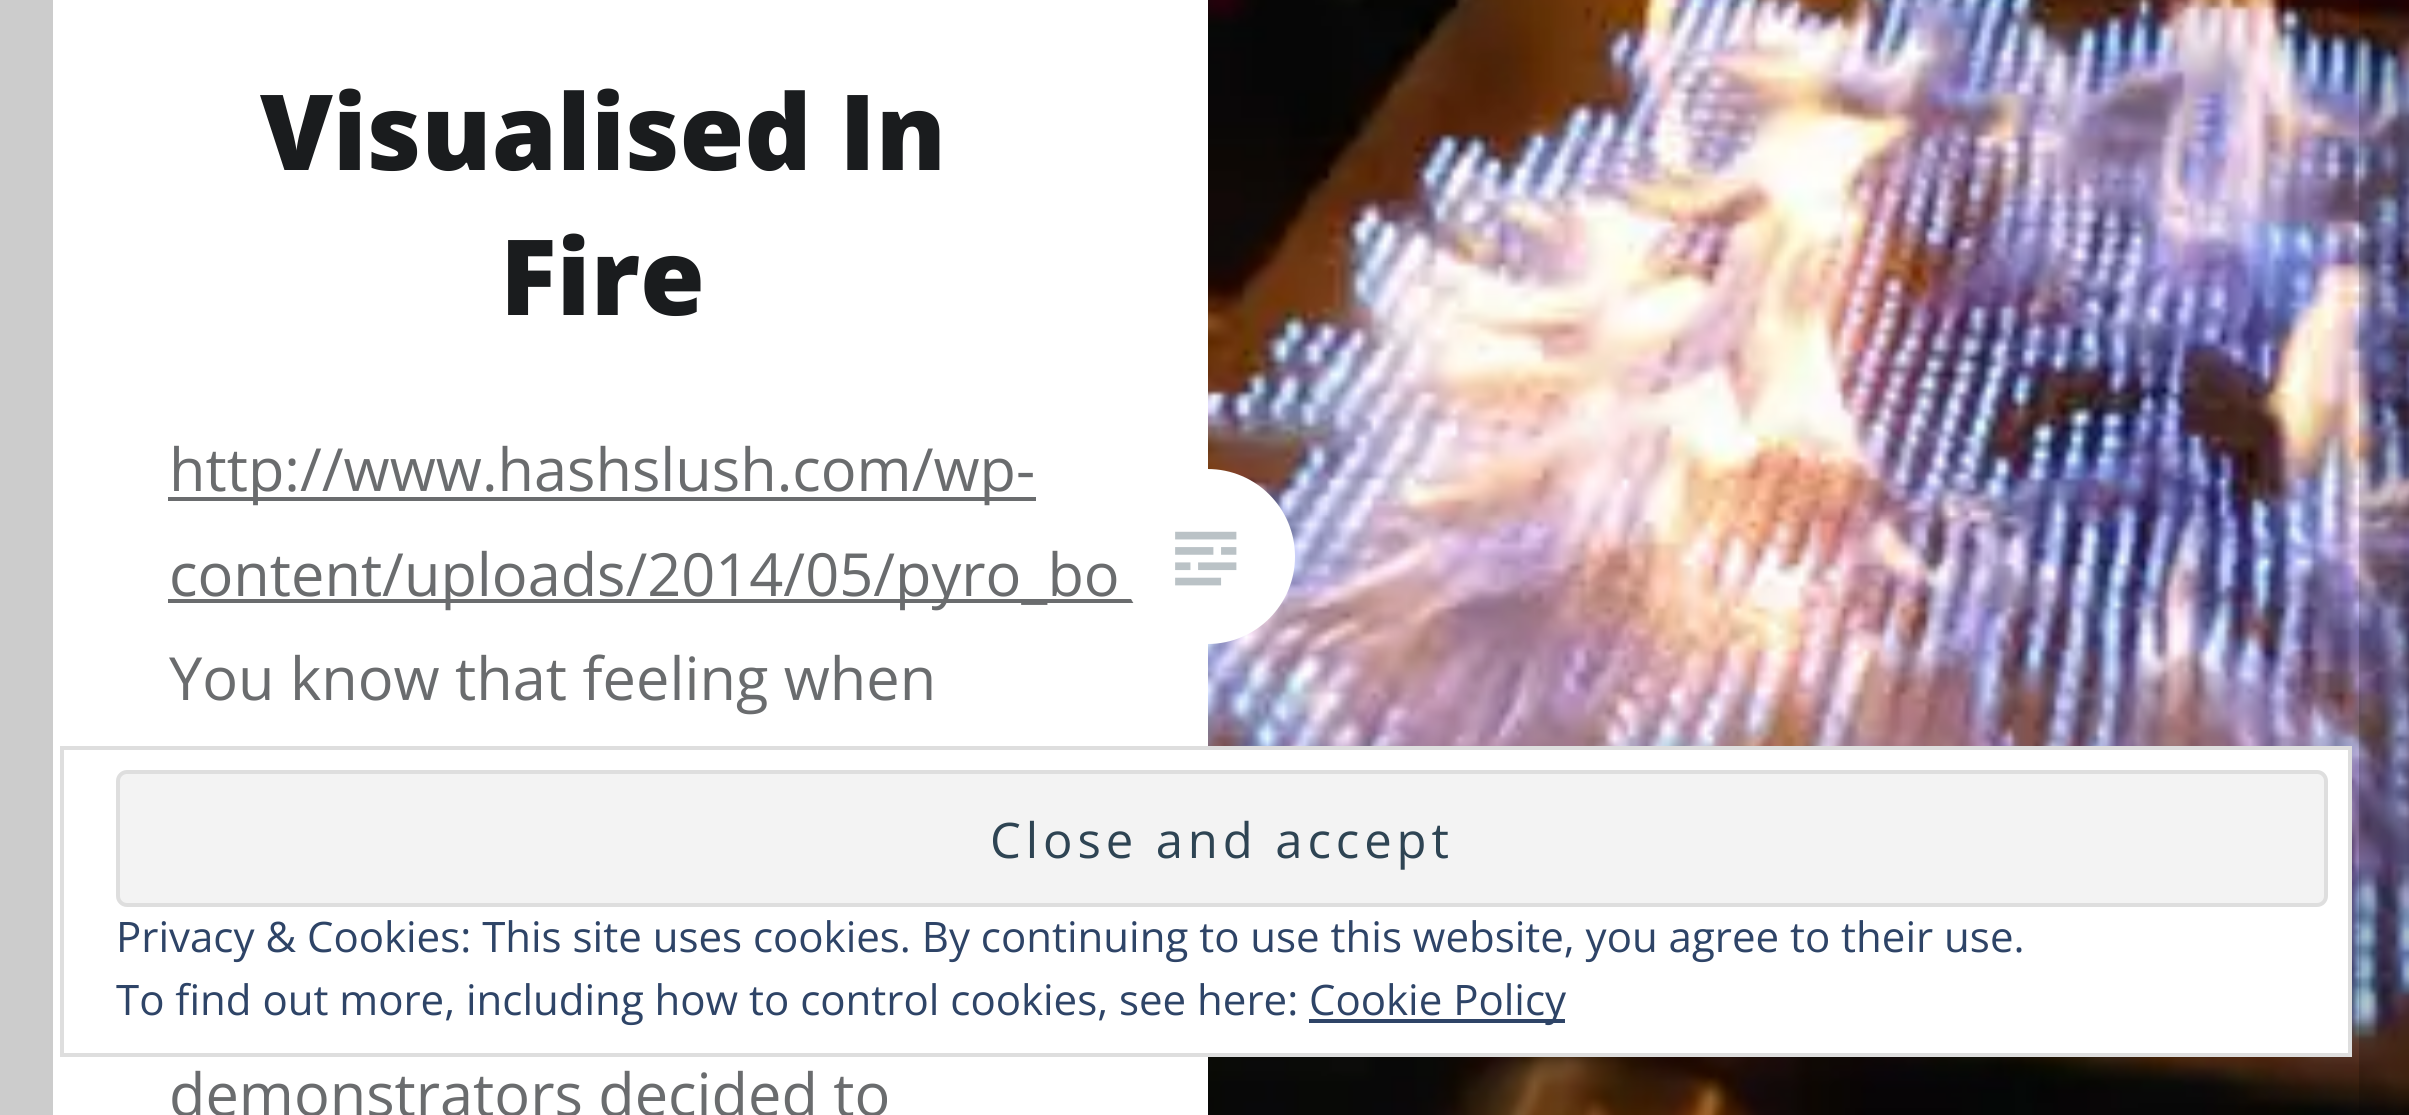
import math
import cairo

surface = cairo.ImageSurface(cairo.FORMAT_RGB24, 2409, 1115)
ctx = cairo.Context(surface)
options = cairo.FontOptions()
options.set_hint_metrics(cairo.HINT_METRICS_OFF)
options.set_hint_style(cairo.HINT_STYLE_NONE)
ctx.set_font_options(options)
ctx.set_miter_limit(4)


def set_color(code):
    ctx.set_source_rgb(*(v / 255 for v in bytes.fromhex(code[-6:])))


def draw_text(x, y, s, family, size, color, bold=False, italic=False):
    ctx.select_font_face(family, cairo.FONT_SLANT_ITALIC if italic else cairo.FONT_SLANT_NORMAL, cairo.FONT_WEIGHT_BOLD if bold else cairo.FONT_WEIGHT_NORMAL)
    ctx.set_font_size(size)
    set_color(color)
    ctx.move_to(x, y)
    ctx.show_text(s)


def draw_spaced(x, y, s, letter, word):
    ctx.move_to(x, y)
    for ch in s:
        ctx.show_text(ch)
        ctx.rel_move_to(letter + word * (ch == ' '), 0)


def fill_rect(x, y, w, h, color):
    set_color(color)
    ctx.rectangle(x, y, w, h)
    ctx.fill()


def rounded_rect(x, y, w, h, r):
    ctx.new_sub_path()
    for i, (u, v) in enumerate([(x + w - r, y + h - r), (x + r, y + h - r), (x + r, y + r), (x + w - r, y + r)]):
        ctx.arc(u, v, r, i * math.pi / 2, (i + 1) * math.pi / 2)
    ctx.close_path()


def draw_image(path, x, y, w, h):
    ctx.save()
    ctx.set_source_surface(cairo.ImageSurface.create_from_png(path), x, y)
    ctx.rectangle(x, y, w, h)
    ctx.fill()
    ctx.restore()


set_color("#ffffff")
ctx.paint()
fill_rect(168, 497, 868, 4, "#6a6c6e")
fill_rect(168, 599, 966, 4, "#6a6c6e")
draw_image("assets/img2.png", 1208, 0, 1201, 1115)
set_color("#ffffff")
ctx.arc(1207.5, 556.5, 87.5, 0, 2 * math.pi)
ctx.fill()
ctx.rectangle(26.5, -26.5, 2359, 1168)
ctx.set_source_rgba(0, 0, 0, 0.2)
ctx.set_line_width(53)
ctx.stroke()
draw_text(260, 170, "Visualised In", "Open Sans ExtraBold", 105, "#1a1c1e")
draw_text(500, 315, "Fire", "Open Sans ExtraBold", 105, "#1a1c1e")
draw_text(169, 491, "http://www.hashslush.com/wp-", "Open Sans", 59.5, "#6a6c6e")
draw_text(169, 596, "content/uploads/2014/05/pyro_bo", "Open Sans", 59.5, "#6a6c6e")
draw_text(169, 700, "You know that feeling when", "Open Sans", 59.5, "#6a6c6e")
draw_text(169, 1116, "demonstrators decided to", "Open Sans", 59.5, "#6a6c6e")
draw_image("assets/img1.png", 1175, 531, 62, 55)
fill_rect(1208, 750, 1140, 303, "#ffffff")
ctx.rectangle(62, 748, 2288, 307)
set_color("#dedede")
ctx.set_line_width(4)
ctx.stroke()
set_color("#f3f3f3")
rounded_rect(118, 772, 2208, 133, 9)
ctx.fill_preserve()
set_color("#dedede")
ctx.stroke()
ctx.set_font_size(49)
set_color("#2e4453")
draw_spaced(990, 858, "Close and accept", 4.9, 0)
draw_text(116, 952, "Privacy & Cookies: This site uses cookies. By continuing to use this website, you agree to their use.", "Open Sans", 42, "#2e4467")
draw_text(116, 1015, "To find out more, including how to control cookies, see here:", "Open Sans", 42, "#2e4467")
fill_rect(1309, 1019, 256, 4, "#2e4467")
draw_text(1309, 1015, "Cookie Policy", "Open Sans", 42, "#2e4467")
surface.write_to_png("output.png")
